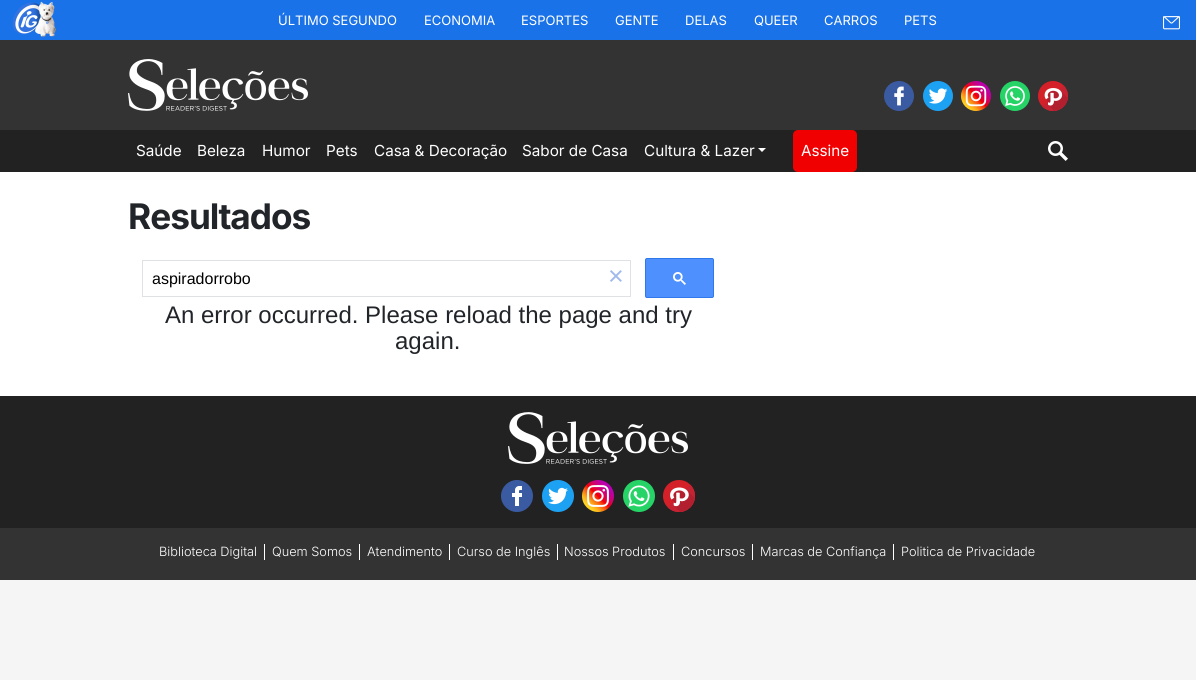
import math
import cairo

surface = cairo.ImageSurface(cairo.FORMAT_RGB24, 1196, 680)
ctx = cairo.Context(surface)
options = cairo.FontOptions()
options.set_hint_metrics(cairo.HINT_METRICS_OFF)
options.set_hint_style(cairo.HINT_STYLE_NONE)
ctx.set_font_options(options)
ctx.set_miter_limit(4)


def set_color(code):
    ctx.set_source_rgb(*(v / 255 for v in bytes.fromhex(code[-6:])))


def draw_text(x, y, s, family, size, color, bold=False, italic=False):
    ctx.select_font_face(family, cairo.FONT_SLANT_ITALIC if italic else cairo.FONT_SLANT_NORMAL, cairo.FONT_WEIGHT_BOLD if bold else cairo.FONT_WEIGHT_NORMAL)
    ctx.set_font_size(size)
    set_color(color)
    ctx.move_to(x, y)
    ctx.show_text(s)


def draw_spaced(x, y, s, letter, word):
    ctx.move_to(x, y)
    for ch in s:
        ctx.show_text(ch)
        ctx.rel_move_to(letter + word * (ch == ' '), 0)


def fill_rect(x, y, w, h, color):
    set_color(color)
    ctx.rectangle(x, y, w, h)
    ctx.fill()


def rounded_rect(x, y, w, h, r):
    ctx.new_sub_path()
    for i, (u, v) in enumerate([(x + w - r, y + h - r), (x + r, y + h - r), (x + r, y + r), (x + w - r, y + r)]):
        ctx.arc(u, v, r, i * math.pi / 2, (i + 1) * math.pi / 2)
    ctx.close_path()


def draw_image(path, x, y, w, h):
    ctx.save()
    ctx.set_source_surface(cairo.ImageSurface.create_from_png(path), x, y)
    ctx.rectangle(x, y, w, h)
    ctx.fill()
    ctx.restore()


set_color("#ffffff")
ctx.paint()
fill_rect(0, 0, 1196, 40, "#1a72e8")
draw_image("assets/img1.png", 12, 1, 44, 36)
draw_text(278, 25, "ÚLTIMO SEGUNDO", "Inter", 13, "#ffffff")
draw_text(424, 25, "ECONOMIA", "Inter", 13, "#ffffff")
draw_text(521, 25, "ESPORTES", "Inter", 13, "#ffffff")
draw_text(615, 25, "GENTE", "Inter", 13, "#ffffff")
draw_text(685, 25, "DELAS", "Inter", 13, "#ffffff")
draw_text(754, 25, "QUEER", "Inter", 13, "#ffffff")
draw_text(824, 25, "CARROS", "Inter", 13, "#ffffff")
draw_text(904, 25, "PETS", "Inter", 13, "#ffffff")
draw_image("assets/img2.png", 1163, 16, 17, 14)
fill_rect(0, 40, 1196, 90, "#333333")
draw_image("assets/img3.png", 128, 59, 180, 52)
draw_image("assets/img4.png", 884, 81, 30, 30)
draw_image("assets/img5.png", 923, 81, 30, 30)
draw_image("assets/img6.png", 961, 81, 30, 30)
draw_image("assets/img7.png", 1000, 81, 30, 30)
draw_image("assets/img8.png", 1038, 81, 30, 30)
fill_rect(0, 130, 1196, 42, "#222222")
draw_text(136, 156, "Saúde", "Inter", 15.25, "#ffffff")
draw_text(197, 156, "Beleza", "Inter", 15.25, "#ffffff")
draw_text(262, 156, "Humor", "Inter", 15.25, "#ffffff")
draw_text(326, 156, "Pets", "Inter", 15.25, "#ffffff")
draw_text(374, 156, "Casa & Decoração", "Inter", 15.25, "#ffffff")
draw_text(522, 156, "Sabor de Casa", "Inter", 15.25, "#ffffff")
draw_text(644, 156, "Cultura & Lazer", "Inter", 15.25, "#ffffff")
ctx.new_path()
ctx.move_to(758, 148)
ctx.line_to(766, 148)
ctx.line_to(762, 152)
ctx.close_path()
ctx.fill()
set_color("#f00000")
rounded_rect(793, 130, 64, 42, 5)
ctx.fill()
draw_text(801, 156, "Assine", "Inter", 15.25, "#ffffff")
draw_image("assets/img9.png", 1048, 141, 20, 20)
ctx.select_font_face("Inter", cairo.FONT_SLANT_NORMAL, cairo.FONT_WEIGHT_BOLD)
ctx.set_font_size(35.25)
set_color("#212529")
draw_spaced(128, 229, "Resultados", -1, 0)
ctx.rectangle(142.5, 260.5, 488, 36)
set_color("#dfe1e5")
ctx.set_line_width(1)
ctx.stroke()
draw_text(152, 284, "aspiradorrobo", "Liberation Sans", 16, "#000000")
draw_text(608, 285, "×", "Liberation Sans", 27, "#a1b9ed")
set_color("#4d90fe")
rounded_rect(645.5, 258.5, 68, 39, 1.5)
ctx.fill_preserve()
set_color("#3079ed")
ctx.stroke()
draw_image("assets/img10.png", 673, 272, 13, 13)
draw_text(165, 323, "An error occurred. Please reload the page and try", "Liberation Sans", 24, "#212529")
draw_text(395, 349, "again.", "Liberation Sans", 24, "#212529")
fill_rect(0, 528, 1196, 52, "#333333")
fill_rect(0, 396, 1196, 132, "#222222")
draw_image("assets/img11.png", 508, 412, 180, 52)
draw_image("assets/img12.png", 501, 480, 32, 32)
draw_image("assets/img13.png", 542, 480, 32, 32)
draw_image("assets/img14.png", 582, 480, 32, 32)
draw_image("assets/img15.png", 623, 480, 32, 32)
draw_image("assets/img16.png", 663, 480, 32, 32)
draw_text(159, 556, "Biblioteca Digital", "Inter Light", 12.75, "#ffffff")
fill_rect(264, 544, 1, 16, "#ffffff")
draw_text(272, 556, "Quem Somos", "Inter Light", 12.75, "#ffffff")
fill_rect(359, 544, 1, 16, "#ffffff")
draw_text(367, 556, "Atendimento", "Inter Light", 12.75, "#ffffff")
fill_rect(449, 544, 1, 16, "#ffffff")
draw_text(457, 556, "Curso de Inglês", "Inter Light", 12.75, "#ffffff")
fill_rect(557, 544, 1, 16, "#ffffff")
draw_text(564, 556, "Nossos Produtos", "Inter Light", 12.75, "#ffffff")
fill_rect(673, 544, 1, 16, "#ffffff")
draw_text(681, 556, "Concursos", "Inter Light", 12.75, "#ffffff")
fill_rect(752, 544, 1, 16, "#ffffff")
draw_text(760, 556, "Marcas de Confiança", "Inter Light", 12.75, "#ffffff")
fill_rect(893, 544, 1, 16, "#ffffff")
draw_text(901, 556, "Politica de Privacidade", "Inter Light", 12.75, "#ffffff")
fill_rect(0, 580, 1196, 100, "#f5f5f5")
surface.write_to_png("output.png")
